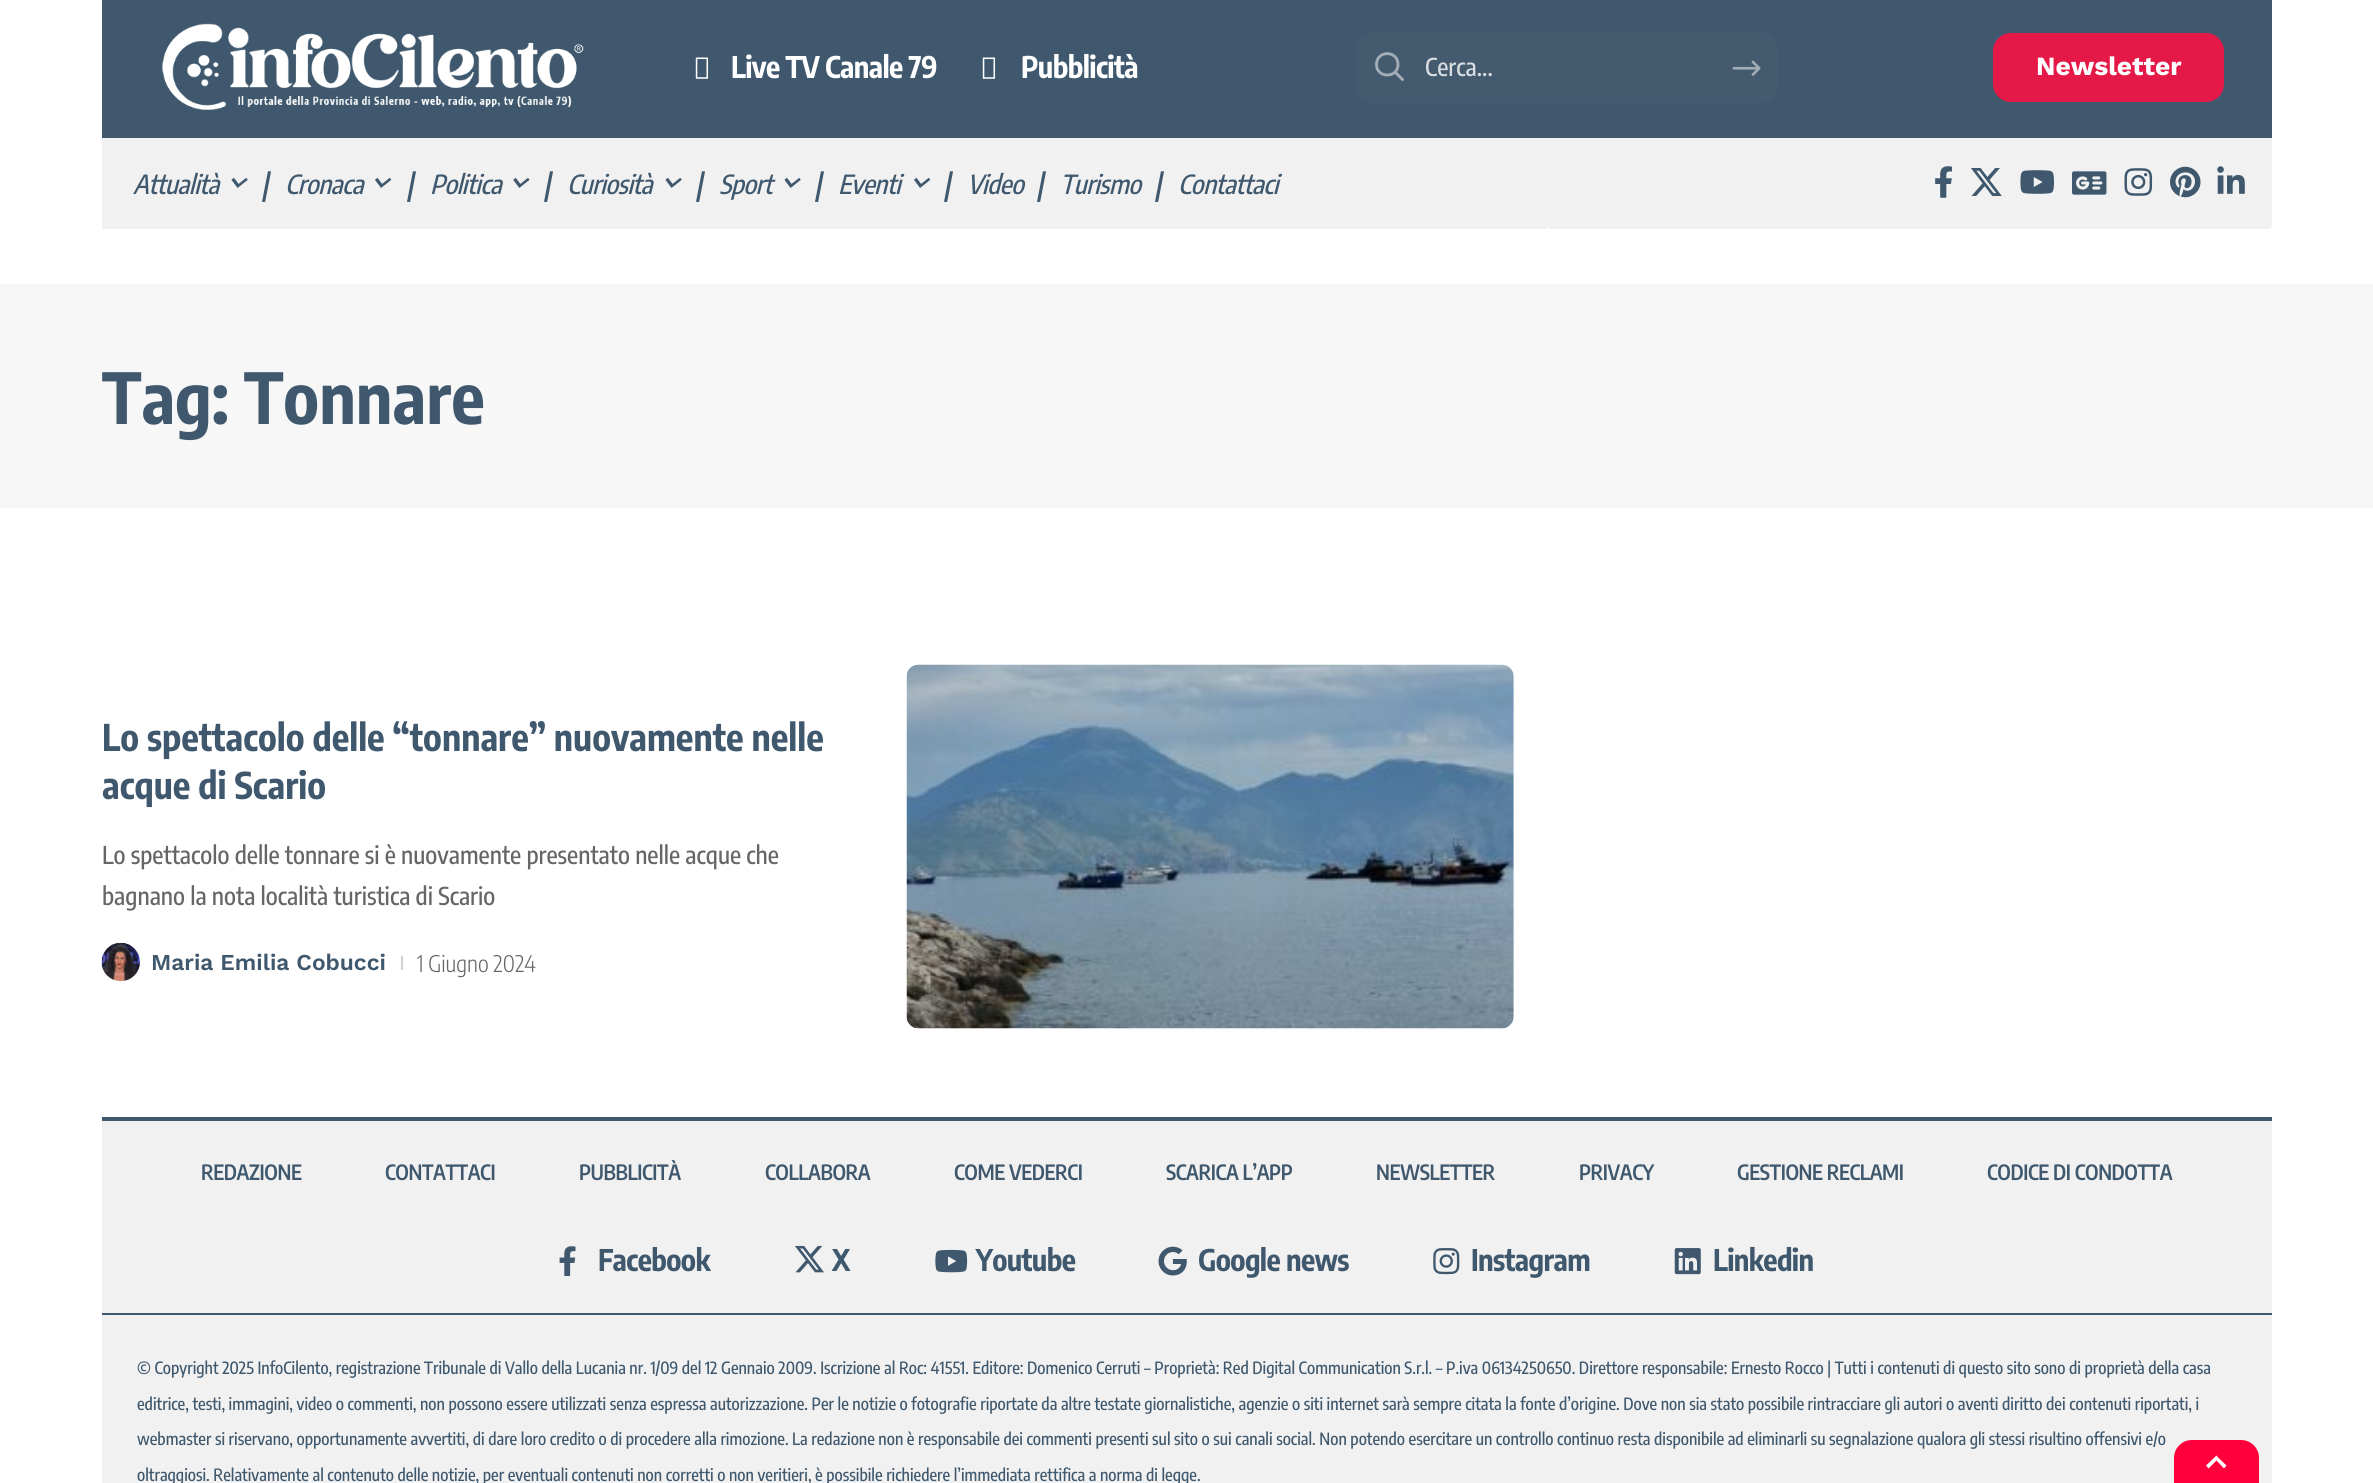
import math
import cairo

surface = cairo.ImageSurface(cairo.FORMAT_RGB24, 2373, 1483)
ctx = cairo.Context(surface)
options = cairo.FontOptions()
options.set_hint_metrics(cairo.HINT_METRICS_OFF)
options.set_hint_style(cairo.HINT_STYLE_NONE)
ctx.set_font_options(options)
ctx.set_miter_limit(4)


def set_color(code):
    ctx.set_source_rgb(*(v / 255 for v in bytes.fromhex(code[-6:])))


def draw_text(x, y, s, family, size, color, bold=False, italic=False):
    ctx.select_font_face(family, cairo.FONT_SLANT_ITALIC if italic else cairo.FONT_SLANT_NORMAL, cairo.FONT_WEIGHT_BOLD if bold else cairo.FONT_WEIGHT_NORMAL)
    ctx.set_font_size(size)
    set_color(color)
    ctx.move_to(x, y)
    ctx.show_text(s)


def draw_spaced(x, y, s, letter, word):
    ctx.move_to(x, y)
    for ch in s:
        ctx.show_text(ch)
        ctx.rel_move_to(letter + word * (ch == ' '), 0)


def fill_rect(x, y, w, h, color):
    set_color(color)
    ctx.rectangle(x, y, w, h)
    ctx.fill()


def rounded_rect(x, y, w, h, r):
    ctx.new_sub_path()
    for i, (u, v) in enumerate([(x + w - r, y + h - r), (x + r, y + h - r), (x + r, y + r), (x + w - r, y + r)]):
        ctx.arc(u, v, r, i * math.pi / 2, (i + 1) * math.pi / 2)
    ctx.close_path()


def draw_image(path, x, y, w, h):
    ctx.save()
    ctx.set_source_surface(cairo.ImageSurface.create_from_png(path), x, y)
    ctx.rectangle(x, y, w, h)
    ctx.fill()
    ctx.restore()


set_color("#ffffff")
ctx.paint()
fill_rect(102, 0, 2170, 138, "#3f586d")
draw_image("assets/img1.png", 162, 23, 422, 87)
draw_image("assets/img2.png", 695, 57, 14, 22)
ctx.select_font_face("Encode Sans Condensed", cairo.FONT_SLANT_NORMAL, cairo.FONT_WEIGHT_BOLD)
ctx.set_font_size(29.75)
set_color("#ffffff")
draw_spaced(731, 78, "Live TV Canale 79", -0.6, 0)
draw_image("assets/img2.png", 982, 57, 14, 22)
draw_spaced(1021, 78, "Pubblicità", -0.6, 0)
set_color("#445b6f")
rounded_rect(1355, 32, 423, 71, 18)
ctx.fill()
ctx.new_path()
ctx.move_to(1395, 72)
ctx.line_to(1402.5, 79.5)
ctx.move_to(1398, 64.5)
ctx.curve_to(1398, 78.5, 1376.5, 78.5, 1376.5, 64.5)
ctx.curve_to(1376.5, 50, 1398, 50, 1398, 64.5)
ctx.close_path()
set_color("#a2adb7")
ctx.set_line_width(2.9)
ctx.set_line_cap(cairo.LINE_CAP_ROUND)
ctx.set_line_join(cairo.LINE_JOIN_ROUND)
ctx.stroke()
draw_text(1425, 76, "Cerca...", "Encode Sans Condensed Medium", 24.5, "#dadee2")
draw_image("assets/img3.png", 1732, 60, 29, 16)
set_color("#e51947")
rounded_rect(1993, 33, 231, 69, 18)
ctx.fill()
draw_text(2036, 75, "Newsletter", "Work Sans", 26.25, "#ffffff", bold=True)
set_color("#f1f1f1")
ctx.new_path()
ctx.move_to(102, 138)
ctx.line_to(1549, 138)
ctx.line_to(1549, 225)
ctx.curve_to(1549, 227, 1547, 229, 1545, 229)
ctx.line_to(102, 229)
ctx.close_path()
ctx.fill()
ctx.select_font_face("Encode Sans Condensed Medium", cairo.FONT_SLANT_ITALIC)
set_color("#3f586d")
draw_spaced(133, 194, "Attualità", -0.5, 0)
draw_image("assets/img4.png", 231, 177, 17, 11)
draw_text(262, 198, "/", "Encode Sans Condensed Medium", 33, "#3f586d")
ctx.select_font_face("Encode Sans Condensed Medium", cairo.FONT_SLANT_ITALIC)
ctx.set_font_size(26.25)
draw_spaced(285, 194, "Cronaca", -0.5, 0)
draw_image("assets/img5.png", 375, 177, 17, 11)
draw_text(407, 198, "/", "Encode Sans Condensed Medium", 33, "#3f586d")
ctx.select_font_face("Encode Sans Condensed Medium", cairo.FONT_SLANT_ITALIC)
ctx.set_font_size(26.25)
draw_spaced(430, 194, "Politica", -0.5, 0)
draw_image("assets/img6.png", 513, 177, 17, 11)
draw_text(544, 198, "/", "Encode Sans Condensed Medium", 33, "#3f586d")
ctx.select_font_face("Encode Sans Condensed Medium", cairo.FONT_SLANT_ITALIC)
ctx.set_font_size(26.25)
draw_spaced(567, 194, "Curiosità", -0.5, 0)
draw_image("assets/img4.png", 665, 177, 17, 11)
draw_text(696, 198, "/", "Encode Sans Condensed Medium", 33, "#3f586d")
ctx.select_font_face("Encode Sans Condensed Medium", cairo.FONT_SLANT_ITALIC)
ctx.set_font_size(26.25)
draw_spaced(719, 194, "Sport", -0.5, 0)
draw_image("assets/img4.png", 784, 177, 17, 11)
draw_text(815, 198, "/", "Encode Sans Condensed Medium", 33, "#3f586d")
ctx.select_font_face("Encode Sans Condensed Medium", cairo.FONT_SLANT_ITALIC)
ctx.set_font_size(26.25)
draw_spaced(838, 194, "Eventi", -0.5, 0)
draw_image("assets/img5.png", 914, 177, 17, 11)
draw_text(944, 198, "/", "Encode Sans Condensed Medium", 33, "#3f586d")
ctx.select_font_face("Encode Sans Condensed Medium", cairo.FONT_SLANT_ITALIC)
ctx.set_font_size(26.25)
draw_spaced(967, 194, "Video", -0.5, 0)
draw_text(1037, 198, "/", "Encode Sans Condensed Medium", 33, "#3f586d")
ctx.select_font_face("Encode Sans Condensed Medium", cairo.FONT_SLANT_ITALIC)
ctx.set_font_size(26.25)
draw_spaced(1060, 194, "Turismo", -0.5, 0)
draw_text(1155, 198, "/", "Encode Sans Condensed Medium", 33, "#3f586d")
ctx.select_font_face("Encode Sans Condensed Medium", cairo.FONT_SLANT_ITALIC)
ctx.set_font_size(26.25)
draw_spaced(1178, 194, "Contattaci", -0.5, 0)
set_color("#f1f1f1")
ctx.new_path()
ctx.move_to(1549, 138)
ctx.line_to(2272, 138)
ctx.line_to(2272, 225)
ctx.curve_to(2272, 227, 2270, 229, 2268, 229)
ctx.line_to(1549, 229)
ctx.close_path()
ctx.fill()
draw_image("assets/img7.png", 1935, 166, 18, 32)
draw_image("assets/img8.png", 1971, 168, 31, 28)
draw_image("assets/img9.png", 2020, 170, 34, 24)
draw_image("assets/img10.png", 2072, 171, 35, 24)
draw_image("assets/img11.png", 2124, 168, 29, 28)
draw_image("assets/img12.png", 2170, 166, 31, 32)
draw_image("assets/img13.png", 2217, 166, 28, 28)
fill_rect(0, 284, 2373, 224, "#f7f7f7")
draw_text(102, 424, "Tag: Tonnare", "Encode Sans Condensed", 70, "#3f586d", bold=True)
draw_text(102, 751, "Lo spettacolo delle “tonnare” nuovamente nelle", "Encode Sans Condensed", 36.75, "#3f586d", bold=True)
draw_text(102, 799, "acque di Scario", "Encode Sans Condensed", 36.75, "#3f586d", bold=True)
draw_text(102, 864, "Lo spettacolo delle tonnare si è nuovamente presentato nelle acque che", "Encode Sans Condensed Medium", 24.5, "#666666")
draw_text(102, 905, "bagnano la nota località turistica di Scario", "Encode Sans Condensed Medium", 24.5, "#666666")
draw_image("assets/img14.png", 101, 942, 39, 40)
draw_text(151, 970, "Maria Emilia Cobucci", "Work Sans SemiBold", 22.75, "#3f586d")
fill_rect(401, 956, 2, 14, "#d1d1d1")
draw_text(417, 972, "1 Giugno 2024", "Encode Sans Condensed Light", 22.75, "#666666")
draw_image("assets/img15.png", 906, 664, 608, 365)
fill_rect(102, 1121, 2170, 192, "#f1f1f1")
fill_rect(102, 1117, 2170, 4, "#3f586d")
ctx.select_font_face("Encode Sans Condensed SemiBold")
ctx.set_font_size(21)
draw_spaced(201, 1180, "REDAZIONE", -0.4, 0)
draw_spaced(385, 1180, "CONTATTACI", -0.4, 0)
draw_spaced(579, 1180, "PUBBLICITÀ", -0.4, 0)
draw_spaced(765, 1180, "COLLABORA", -0.4, 0)
draw_spaced(954, 1180, "COME VEDERCI", -0.4, 0)
draw_spaced(1166, 1180, "SCARICA L’APP", -0.4, 0)
draw_spaced(1376, 1180, "NEWSLETTER", -0.4, 0)
draw_spaced(1579, 1180, "PRIVACY", -0.4, 0)
draw_spaced(1737, 1180, "GESTIONE RECLAMI", -0.4, 0)
draw_spaced(1987, 1180, "CODICE DI CONDOTTA", -0.4, 0)
draw_image("assets/img16.png", 559, 1246, 17, 30)
ctx.select_font_face("Encode Sans Condensed", cairo.FONT_SLANT_NORMAL, cairo.FONT_WEIGHT_BOLD)
ctx.set_font_size(29.75)
draw_spaced(598, 1271, "Facebook", -0.6, 0)
draw_image("assets/img17.png", 795, 1245, 29, 28)
draw_spaced(832, 1271, "X", -0.6, 0)
draw_image("assets/img18.png", 935, 1249, 33, 24)
draw_spaced(976, 1271, "Youtube", -0.6, 0)
draw_image("assets/img19.png", 1158, 1246, 29, 30)
draw_spaced(1198, 1271, "Google news", -0.6, 0)
draw_image("assets/img20.png", 1433, 1248, 27, 27)
draw_spaced(1471, 1271, "Instagram", -0.6, 0)
draw_image("assets/img21.png", 1674, 1248, 27, 27)
draw_spaced(1713, 1271, "Linkedin", -0.6, 0)
fill_rect(102, 1315, 2170, 168, "#f1f1f1")
fill_rect(102, 1313, 2170, 2, "#3f586d")
draw_text(137, 1374, "© Copyright 2025 InfoCilento, registrazione Tribunale di Vallo della Lucania nr. 1/09 del 12 Gennaio 2009. Iscrizione al Roc: 41551. Editore: Domenico Cerruti – Proprietà: Red Digital Communication S.r.l. – P.iva 06134250650. Direttore responsabile: Ernesto Rocco | Tutti i contenuti di questo sito sono di proprietà della casa", "Encode Sans Condensed Medium", 16.8, "#3f586d")
draw_text(137, 1410, "editrice, testi, immagini, video o commenti, non possono essere utilizzati senza espressa autorizzazione. Per le notizie o fotografie riportate da altre testate giornalistiche, agenzie o siti internet sarà sempre citata la fonte d’origine. Dove non sia stato possibile rintracciare gli autori o aventi diritto dei contenuti riportati, i", "Encode Sans Condensed Medium", 16.8, "#3f586d")
draw_text(137, 1445, "webmaster si riservano, opportunamente avvertiti, di dare loro credito o di procedere alla rimozione. La redazione non è responsabile dei commenti presenti sul sito o sui canali social. Non potendo esercitare un controllo continuo resta disponibile ad eliminarli su segnalazione qualora gli stessi risultino offensivi e/o", "Encode Sans Condensed Medium", 16.8, "#3f586d")
draw_text(137, 1481, "oltraggiosi. Relativamente al contenuto delle notizie, per eventuali contenuti non corretti o non veritieri, è possibile richiedere l’immediata rettifica a norma di legge.", "Encode Sans Condensed Medium", 16.8, "#3f586d")
set_color("#ff003c")
ctx.new_path()
ctx.move_to(2192, 1440)
ctx.line_to(2241, 1440)
ctx.curve_to(2251, 1440, 2259, 1448, 2259, 1458)
ctx.line_to(2259, 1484)
ctx.line_to(2174, 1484)
ctx.line_to(2174, 1458)
ctx.curve_to(2174, 1448, 2182, 1440, 2192, 1440)
ctx.close_path()
ctx.fill()
set_color("#ffffff")
ctx.new_path()
ctx.move_to(2217.5, 1457)
ctx.line_to(2216.5, 1455.5)
ctx.line_to(2206, 1465.5)
ctx.line_to(2208.5, 1468.5)
ctx.line_to(2216.5, 1460.5)
ctx.line_to(2224, 1468.5)
ctx.line_to(2226.5, 1465.5)
ctx.close_path()
ctx.fill()
surface.write_to_png("output.png")
